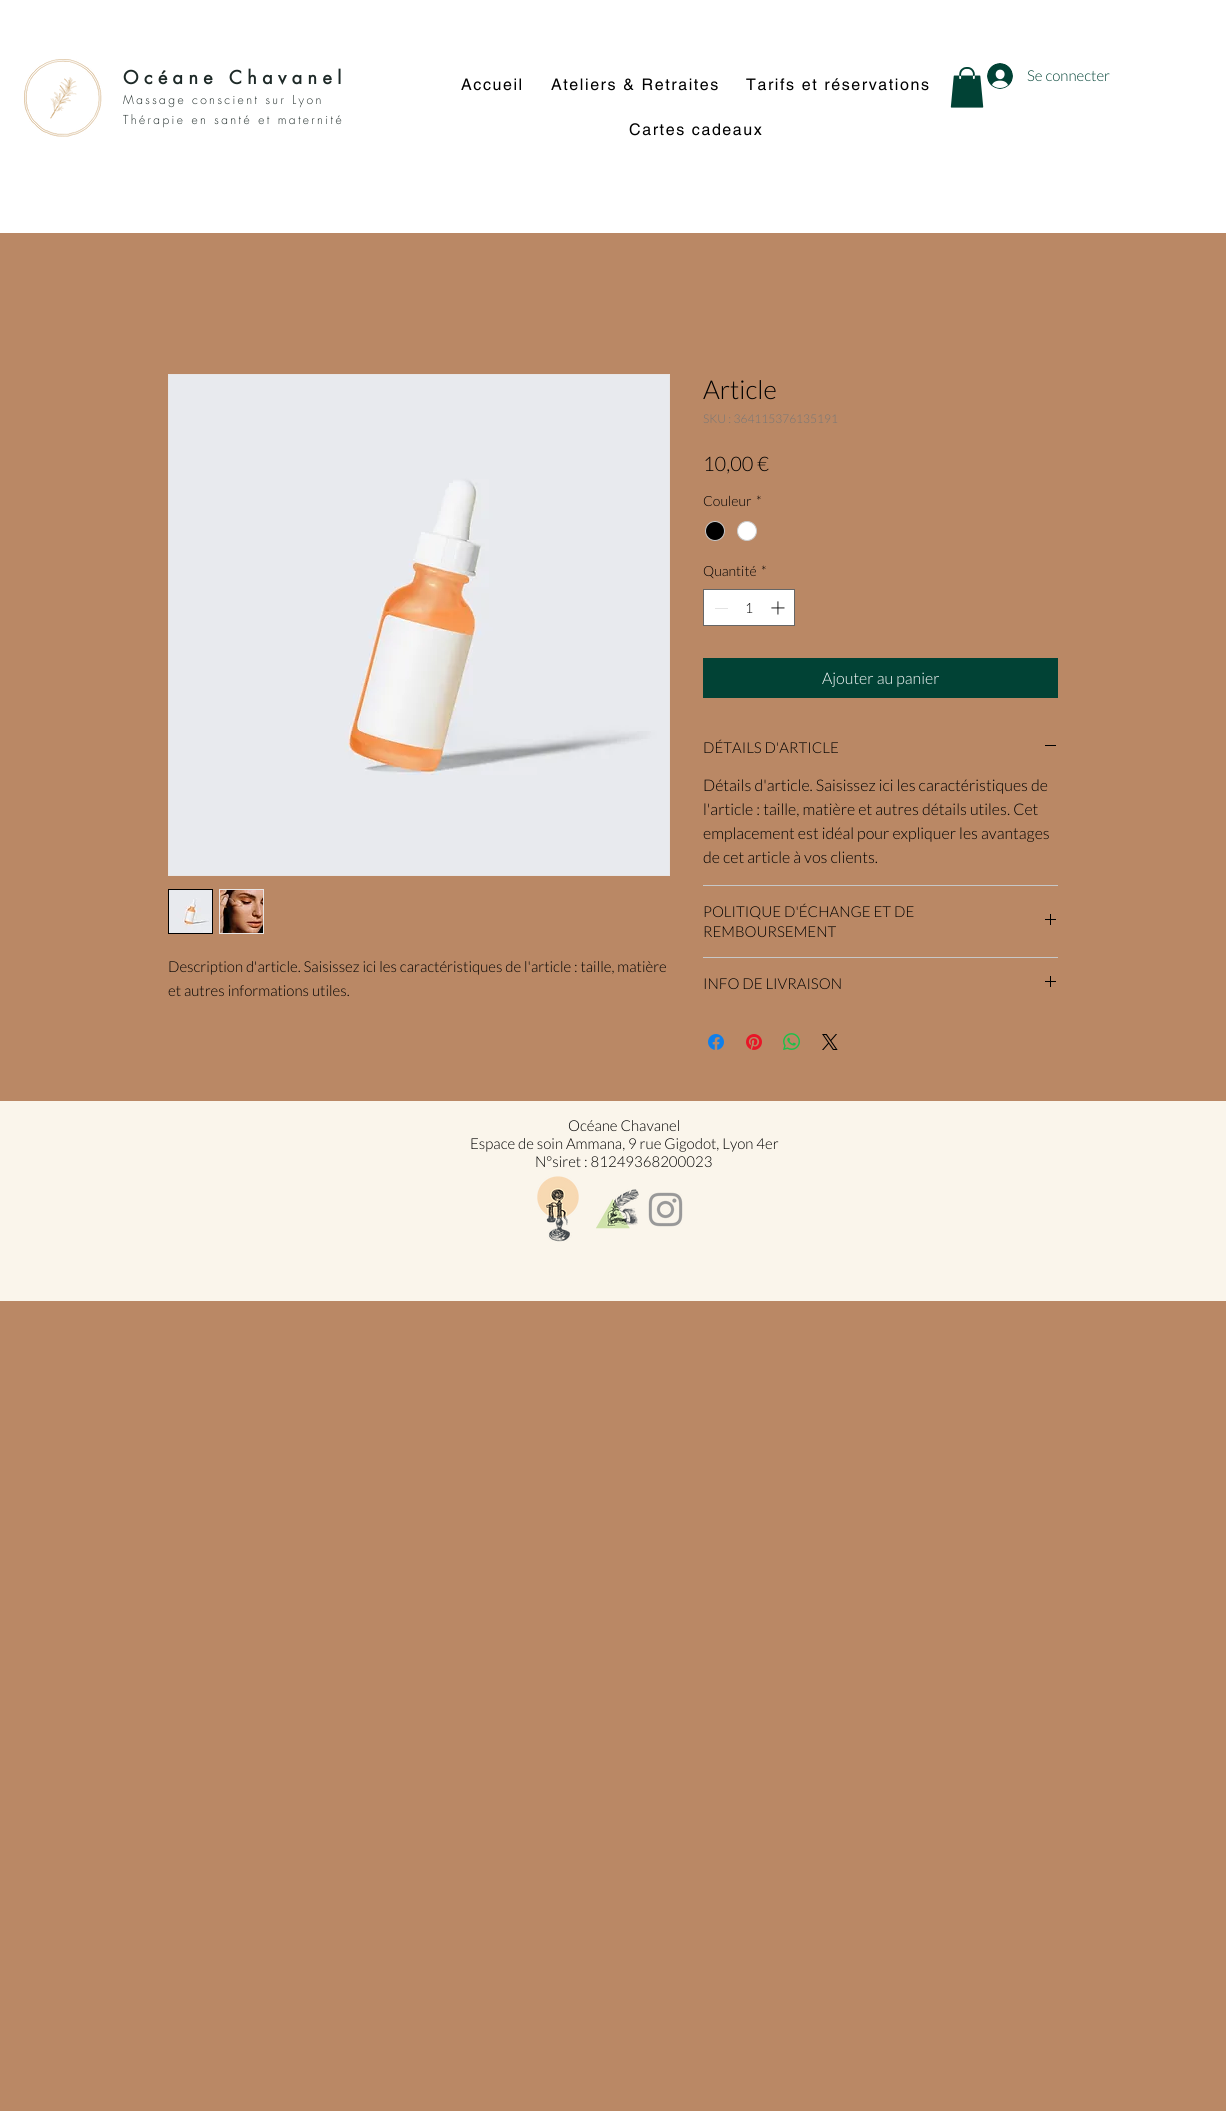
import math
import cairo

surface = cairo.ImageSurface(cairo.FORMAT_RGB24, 1226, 2111)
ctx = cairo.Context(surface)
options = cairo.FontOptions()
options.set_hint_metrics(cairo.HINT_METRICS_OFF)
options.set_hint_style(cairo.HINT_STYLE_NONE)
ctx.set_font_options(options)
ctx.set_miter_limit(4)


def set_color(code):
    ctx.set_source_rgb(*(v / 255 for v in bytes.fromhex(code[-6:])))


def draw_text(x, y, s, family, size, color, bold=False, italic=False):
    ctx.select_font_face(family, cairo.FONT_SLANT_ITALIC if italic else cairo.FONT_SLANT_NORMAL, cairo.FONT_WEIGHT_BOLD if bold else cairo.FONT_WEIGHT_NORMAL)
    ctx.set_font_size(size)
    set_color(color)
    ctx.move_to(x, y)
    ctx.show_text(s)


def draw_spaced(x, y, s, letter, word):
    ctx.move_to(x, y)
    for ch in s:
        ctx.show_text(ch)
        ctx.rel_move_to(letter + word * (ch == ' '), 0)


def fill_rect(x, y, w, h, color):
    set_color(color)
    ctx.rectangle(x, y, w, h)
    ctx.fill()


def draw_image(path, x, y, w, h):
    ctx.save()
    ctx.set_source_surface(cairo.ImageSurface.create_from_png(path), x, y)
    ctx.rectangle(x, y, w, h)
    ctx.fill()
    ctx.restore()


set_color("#ba8865")
ctx.paint()
fill_rect(0, 0, 1226, 233, "#ffffff")
draw_image("assets/img1.png", 24, 59, 78, 78)
ctx.select_font_face("futura", cairo.FONT_SLANT_NORMAL, cairo.FONT_WEIGHT_BOLD)
ctx.set_font_size(18)
set_color("#1d2927")
draw_spaced(123, 84, "Océane Chavanel", 5.4, 0)
ctx.select_font_face("futura Light")
ctx.set_font_size(12)
draw_spaced(123, 104, "Massage conscient sur Lyon", 2.4, 0)
draw_spaced(123, 124, "Thérapie en santé et maternité", 2.4, 0)
draw_image("assets/img2.png", 950, 67, 34, 41)
draw_image("assets/img3.png", 987, 63, 26, 26)
draw_text(1027, 81, "Se connecter", "Lato Light", 15, "#014235")
ctx.select_font_face("helvetica")
ctx.set_font_size(16)
set_color("#000000")
draw_spaced(461, 90, "Accueil", 1.6, 0)
draw_spaced(551, 90, "Ateliers & Retraites", 1.6, 0)
draw_spaced(746, 90, "Tarifs et réservations", 1.6, 0)
draw_spaced(629, 135, "Cartes cadeaux", 1.6, 0)
ctx.rectangle(168.5, 374.5, 501, 501)
set_color("#e8e6e6")
ctx.set_line_width(1)
ctx.stroke()
draw_image("assets/img4.png", 169, 375, 500, 500)
ctx.rectangle(168.5, 889.5, 44, 44)
set_color("#000000")
ctx.stroke()
draw_image("assets/img5.png", 169, 890, 43, 43)
fill_rect(219, 889, 45, 45, "#e8e6e6")
draw_image("assets/img6.png", 220, 890, 43, 43)
draw_text(168, 972, "Description d'article. Saisissez ici les caractéristiques de l'article : taille, matière", "Lato Light", 15, "#000000")
draw_text(168, 996, "et autres informations utiles.", "Lato Light", 15, "#000000")
draw_text(703, 399, "Article", "Lato Light", 26, "#000000")
draw_text(703, 423, "SKU : 364115376135191", "Lato Light", 12, "#757575")
draw_text(703, 471, "10,00 €", "Lato Light", 20, "#000000")
draw_text(703, 506, "Couleur", "Lato Light", 14, "#000000")
draw_text(756, 506, "*", "Lato Light", 14, "#000000")
ctx.new_path()
ctx.arc(715, 531, 9.5, 0, 2 * math.pi)
ctx.fill_preserve()
set_color("#c9c9c9")
ctx.stroke()
set_color("#ffffff")
ctx.arc(747, 531, 9.5, 0, 2 * math.pi)
ctx.fill_preserve()
set_color("#c9c9c9")
ctx.stroke()
draw_text(703, 576, "Quantité", "Lato Light", 14, "#000000")
draw_text(761, 576, "*", "Lato Light", 14, "#000000")
set_color("#ffffff")
ctx.rectangle(703.5, 589.5, 91, 36)
ctx.fill_preserve()
set_color("#666666")
ctx.stroke()
fill_rect(715, 608, 13, 1, "#e3e3e3")
draw_text(745, 613, "1", "Lato Light", 14, "#000000")
draw_image("assets/img7.png", 771, 601, 14, 14)
fill_rect(703, 658, 355, 40, "#014235")
draw_text(822, 684, "Ajouter au panier", "Lato Light", 16, "#ffffff")
fill_rect(703, 885, 355, 1, "#c7c7c7")
draw_text(703, 753, "DÉTAILS D'ARTICLE", "Lato Light", 15, "#000000")
fill_rect(1045, 745, 11, 1, "#000000")
draw_text(703, 791, "Détails d'article. Saisissez ici les caractéristiques de", "Lato Light", 16, "#000000")
draw_text(703, 815, "l'article : taille, matière et autres détails utiles. Cet", "Lato Light", 16, "#000000")
draw_text(703, 839, "emplacement est idéal pour expliquer les avantages", "Lato Light", 16, "#000000")
draw_text(703, 863, "de cet article à vos clients.", "Lato Light", 16, "#000000")
fill_rect(703, 957, 355, 1, "#c7c7c7")
draw_text(703, 917, "POLITIQUE D'ÉCHANGE ET DE", "Lato Light", 15, "#000000")
draw_text(703, 937, "REMBOURSEMENT", "Lato Light", 15, "#000000")
draw_image("assets/img8.png", 1045, 914, 11, 11)
draw_text(703, 989, "INFO DE LIVRAISON", "Lato Light", 15, "#000000")
draw_image("assets/img8.png", 1045, 976, 11, 11)
draw_image("assets/img9.png", 708, 1034, 16, 16)
draw_image("assets/img10.png", 746, 1034, 16, 16)
draw_image("assets/img11.png", 783, 1033, 17, 17)
draw_image("assets/img12.png", 822, 1034, 16, 16)
fill_rect(0, 1101, 1226, 200, "#faf5eb")
draw_text(568, 1131, "Océane Chavanel", "Lato Light", 15, "#000000")
draw_text(470, 1149, "Espace de soin Ammana, 9 rue Gigodot, Lyon 4er", "Lato Light", 15, "#000000")
draw_text(535, 1167, "N°siret : 81249368200023", "Lato Light", 15, "#000000")
draw_image("assets/img13.png", 537, 1176, 42, 66)
draw_image("assets/img14.png", 596, 1189, 43, 40)
draw_image("assets/img15.png", 648, 1192, 35, 35)
surface.write_to_png("output.png")
